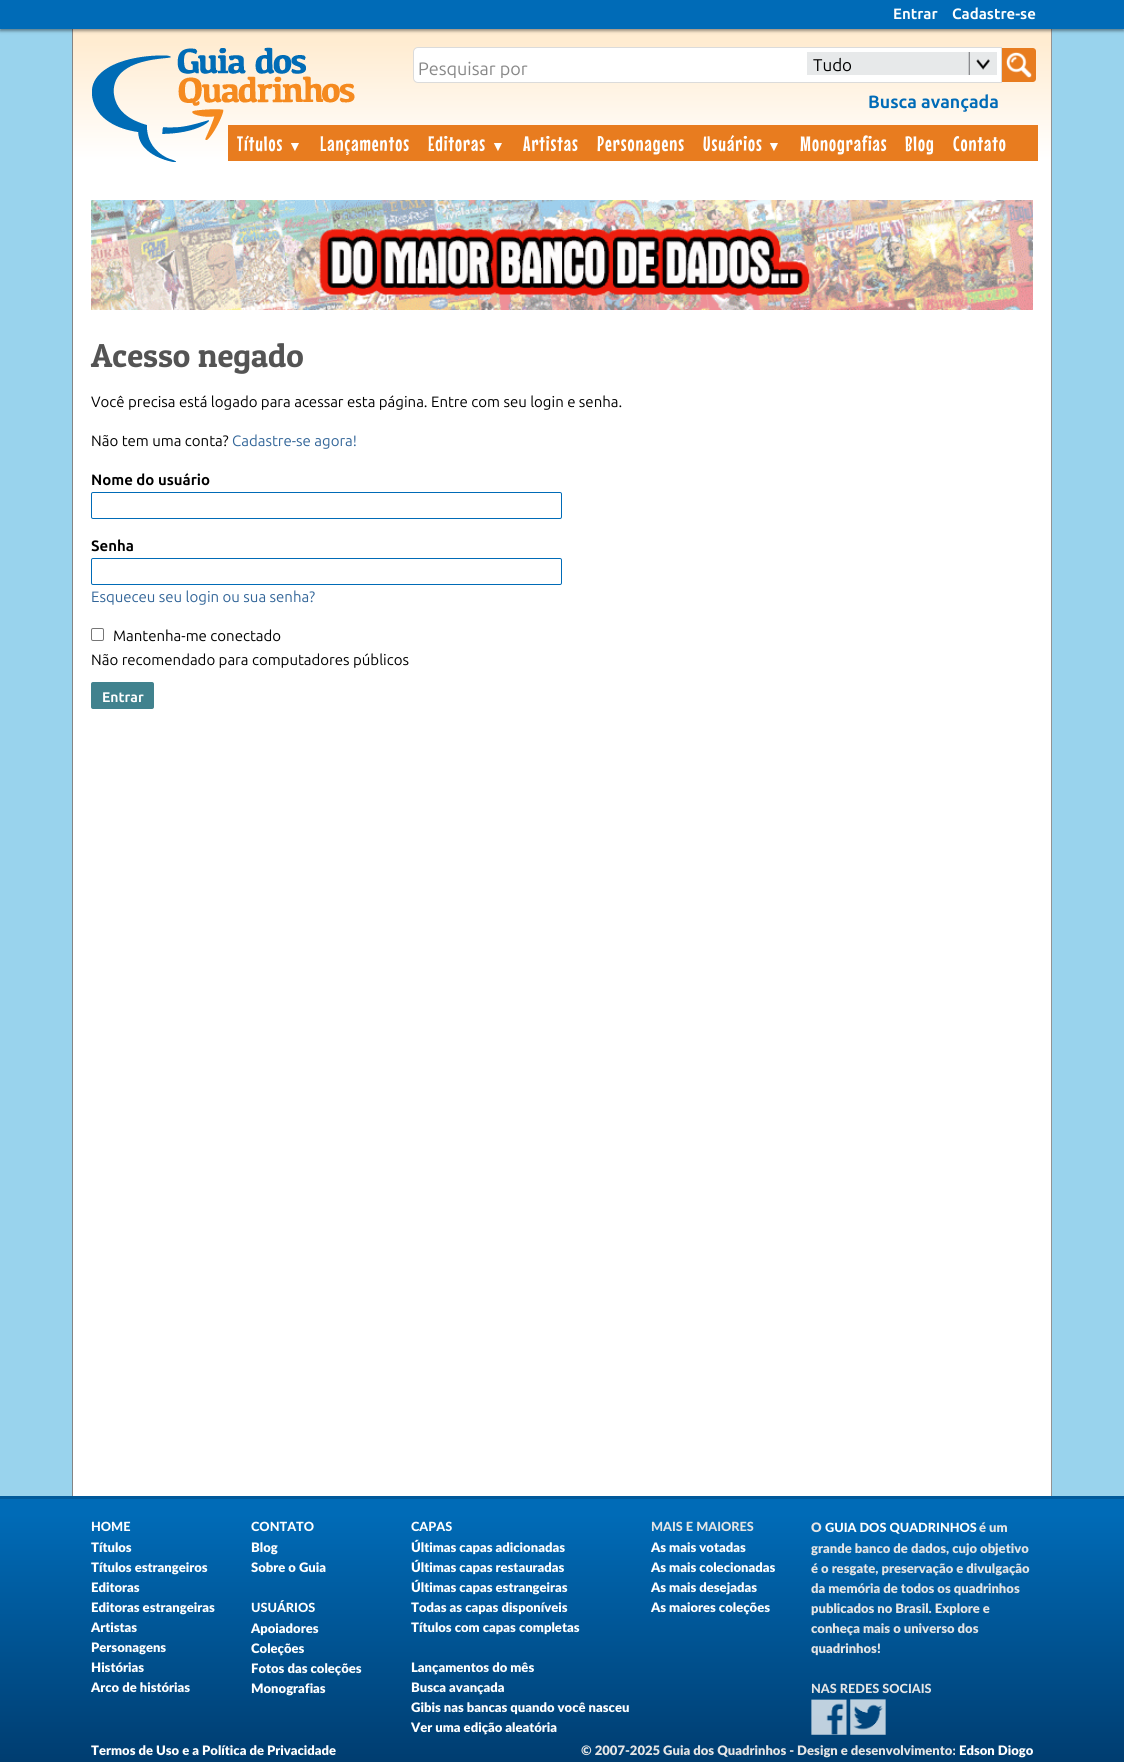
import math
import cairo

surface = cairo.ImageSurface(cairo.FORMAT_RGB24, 1124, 1762)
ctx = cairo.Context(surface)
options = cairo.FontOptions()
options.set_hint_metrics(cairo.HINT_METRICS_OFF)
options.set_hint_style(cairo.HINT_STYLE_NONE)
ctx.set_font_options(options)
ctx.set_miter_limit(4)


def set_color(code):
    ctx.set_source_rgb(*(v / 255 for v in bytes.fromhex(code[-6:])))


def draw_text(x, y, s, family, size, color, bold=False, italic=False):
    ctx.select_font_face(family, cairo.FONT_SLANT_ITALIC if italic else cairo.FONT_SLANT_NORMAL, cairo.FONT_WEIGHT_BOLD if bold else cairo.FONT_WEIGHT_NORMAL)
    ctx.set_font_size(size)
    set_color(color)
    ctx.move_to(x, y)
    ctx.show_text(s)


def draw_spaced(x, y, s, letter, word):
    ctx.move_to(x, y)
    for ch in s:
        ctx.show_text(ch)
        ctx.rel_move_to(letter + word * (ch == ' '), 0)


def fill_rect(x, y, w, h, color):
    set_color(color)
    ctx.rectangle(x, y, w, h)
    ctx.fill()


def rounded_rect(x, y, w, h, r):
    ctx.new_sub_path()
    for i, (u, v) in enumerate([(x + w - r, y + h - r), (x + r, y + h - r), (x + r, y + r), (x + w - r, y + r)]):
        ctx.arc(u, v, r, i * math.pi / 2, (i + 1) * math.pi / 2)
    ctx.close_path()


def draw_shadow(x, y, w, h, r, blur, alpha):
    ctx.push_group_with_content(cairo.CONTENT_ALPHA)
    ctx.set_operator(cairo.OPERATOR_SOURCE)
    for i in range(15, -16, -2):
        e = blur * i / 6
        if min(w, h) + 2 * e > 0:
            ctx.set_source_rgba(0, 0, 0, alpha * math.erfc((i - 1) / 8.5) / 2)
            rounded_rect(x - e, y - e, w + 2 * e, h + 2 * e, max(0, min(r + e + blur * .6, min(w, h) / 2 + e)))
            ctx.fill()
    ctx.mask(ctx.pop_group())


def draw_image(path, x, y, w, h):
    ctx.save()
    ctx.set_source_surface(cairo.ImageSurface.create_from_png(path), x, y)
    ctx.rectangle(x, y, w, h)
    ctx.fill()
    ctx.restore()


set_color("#99d3ed")
ctx.paint()
fill_rect(1051, 29, 1, 1467, "#939393")
fill_rect(72, 29, 1, 1467, "#848484")
gradient = cairo.LinearGradient(73, 29, 73, 160)
gradient.add_color_stop_rgba(0.1, 1, 0.925, 0.82, 1)
gradient.add_color_stop_rgba(1, 1, 1, 1, 1)
ctx.set_source(gradient)
ctx.rectangle(73, 29, 978, 131)
ctx.fill()
set_color("#000000")
draw_shadow(0, 2, 1124, 29, 0, 1.5, 0.4)
fill_rect(0, 0, 1124, 29, "#006bb7")
draw_text(893, 19, "Entrar", "Ubuntu", 15, "#ffffff", bold=True)
draw_text(952, 19, "Cadastre-se", "Ubuntu", 15, "#ffffff", bold=True)
fill_rect(73, 160, 978, 1336, "#ffffff")
draw_image("assets/img1.png", 92, 47, 263, 115)
ctx.new_path()
ctx.move_to(418, 47.5)
ctx.line_to(1001.5, 47.5)
ctx.line_to(1001.5, 82.5)
ctx.line_to(418, 82.5)
ctx.curve_to(415.5, 82.5, 413.5, 80.5, 413.5, 78)
ctx.line_to(413.5, 52)
ctx.curve_to(413.5, 49.5, 415.5, 47.5, 418, 47.5)
ctx.close_path()
ctx.fill_preserve()
set_color("#dbdbdb")
ctx.set_line_width(1)
ctx.stroke()
ctx.save()
rounded_rect(418, 58, 370, 20, 2)
ctx.clip()
draw_text(418, 75, "Pesquisar por", "Ubuntu", 18, "#888888")
ctx.restore()
draw_image("assets/img2.png", 807, 52, 190, 23)
draw_text(813, 71, "Tudo", "Ubuntu", 17, "#000000")
set_color("#e87c1f")
ctx.new_path()
ctx.move_to(1002, 48)
ctx.line_to(1033, 48)
ctx.curve_to(1034.5, 48, 1036, 49.5, 1036, 51)
ctx.line_to(1036, 79)
ctx.curve_to(1036, 80.5, 1034.5, 82, 1033, 82)
ctx.line_to(1002, 82)
ctx.close_path()
ctx.fill()
draw_image("assets/img3.png", 1006, 52, 26, 26)
draw_text(868, 108, "Busca avançada", "Ubuntu", 17.75, "#006bb7", bold=True)
fill_rect(228, 125, 810, 36, "#e87c1f")
ctx.select_font_face("Mouse Memoirs")
ctx.set_font_size(21)
set_color("#ffffff")
draw_spaced(237, 151, "Títulos", 1, 0)
ctx.select_font_face("Liberation Serif")
ctx.set_font_size(14)
draw_spaced(288, 151, "▼", 1, 0)
ctx.select_font_face("Mouse Memoirs")
ctx.set_font_size(21)
draw_spaced(320, 151, "Lançamentos", 1, 0)
draw_spaced(428, 151, "Editoras", 1, 0)
ctx.select_font_face("Liberation Serif")
ctx.set_font_size(14)
draw_spaced(491, 151, "▼", 1, 0)
ctx.select_font_face("Mouse Memoirs")
ctx.set_font_size(21)
draw_spaced(523, 151, "Artistas", 1, 0)
draw_spaced(597, 151, "Personagens", 1, 0)
draw_spaced(703, 151, "Usuários", 1, 0)
ctx.select_font_face("Liberation Serif")
ctx.set_font_size(14)
draw_spaced(767, 151, "▼", 1, 0)
ctx.select_font_face("Mouse Memoirs")
ctx.set_font_size(21)
draw_spaced(800, 151, "Monografias", 1, 0)
draw_spaced(905, 151, "Blog", 1, 0)
draw_spaced(953, 151, "Contato", 1, 0)
draw_image("assets/img4.png", 91, 200, 942, 110)
draw_text(91, 367, "Acesso negado", "Patua One", 33, "#545454")
draw_text(91, 407, "Você precisa está logado para acessar esta página. Entre com seu login e senha.", "Ubuntu", 15, "#000000")
draw_text(91, 446, "Não tem uma conta?", "Ubuntu", 15, "#000000")
draw_text(232, 446, "Cadastre-se agora!", "Ubuntu", 15, "#336699")
draw_text(91, 485, "Nome do usuário", "Ubuntu", 15, "#000000", bold=True)
rounded_rect(91.5, 492.5, 470, 26, 1.5)
set_color("#006bb7")
ctx.stroke()
draw_text(91, 551, "Senha", "Ubuntu", 15, "#000000", bold=True)
rounded_rect(91.5, 558.5, 470, 26, 1.5)
set_color("#006bb7")
ctx.stroke()
draw_text(91, 602, "Esqueceu seu login ou sua senha?", "Ubuntu", 15, "#336699")
rounded_rect(91.5, 628.5, 12, 12, 1.5)
set_color("#767676")
ctx.stroke()
draw_text(113, 641, "Mantenha-me conectado", "Ubuntu", 15, "#000000")
draw_text(91, 665, "Não recomendado para computadores públicos", "Ubuntu", 15, "#000000")
set_color("#41828e")
rounded_rect(91, 682, 63, 27, 2)
ctx.fill()
draw_text(102, 702, "Entrar", "Ubuntu", 14, "#ffffff", bold=True)
gradient = cairo.LinearGradient(0, 1499, 0, 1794)
gradient.add_color_stop_rgba(0.05, 0, 0.42, 0.718, 1)
gradient.add_color_stop_rgba(1, 0, 0.216, 0.404, 1)
ctx.set_source(gradient)
ctx.rectangle(0, 1499, 1124, 263)
ctx.fill()
fill_rect(0, 1496, 1124, 3, "#00599a")
draw_text(91, 1531, "HOME", "Lato Black", 12.7, "#ffffff")
draw_text(91, 1552, "Títulos", "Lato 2 Black", 13.05, "#ffffff")
draw_text(91, 1572, "Títulos estrangeiros", "Lato 2 Black", 13.05, "#ffffff")
draw_text(91, 1592, "Editoras", "Lato 2 Black", 13.05, "#ffffff")
draw_text(91, 1612, "Editoras estrangeiras", "Lato 2 Black", 13.05, "#ffffff")
draw_text(91, 1632, "Artistas", "Lato 2 Black", 13.05, "#ffffff")
draw_text(91, 1652, "Personagens", "Lato 2 Black", 13.05, "#ffffff")
draw_text(91, 1672, "Histórias", "Lato 2 Black", 13.05, "#ffffff")
draw_text(91, 1692, "Arco de histórias", "Lato 2 Black", 13.05, "#ffffff")
draw_text(251, 1531, "CONTATO", "Lato Black", 12.7, "#ffffff")
draw_text(251, 1552, "Blog", "Lato 2 Black", 13.05, "#ffffff")
draw_text(251, 1572, "Sobre o Guia", "Lato 2 Black", 13.05, "#ffffff")
draw_text(251, 1612, "USUÁRIOS", "Lato Black", 12.7, "#ffffff")
draw_text(251, 1633, "Apoiadores", "Lato 2 Black", 13.05, "#ffffff")
draw_text(251, 1653, "Coleções", "Lato 2 Black", 13.05, "#ffffff")
draw_text(251, 1673, "Fotos das coleções", "Lato 2 Black", 13.05, "#ffffff")
draw_text(251, 1693, "Monografias", "Lato 2 Black", 13.05, "#ffffff")
draw_text(411, 1531, "CAPAS", "Lato Black", 12.7, "#ffffff")
draw_text(411, 1552, "Últimas capas adicionadas", "Lato 2 Black", 13.05, "#ffffff")
draw_text(411, 1572, "Últimas capas restauradas", "Lato 2 Black", 13.05, "#ffffff")
draw_text(411, 1592, "Últimas capas estrangeiras", "Lato 2 Black", 13.05, "#ffffff")
draw_text(411, 1612, "Todas as capas disponíveis", "Lato 2 Black", 13.05, "#ffffff")
draw_text(411, 1632, "Títulos com capas completas", "Lato 2 Black", 13.05, "#ffffff")
draw_text(411, 1672, "Lançamentos do mês", "Lato 2 Black", 13.05, "#ffffff")
draw_text(411, 1692, "Busca avançada", "Lato 2 Black", 13.05, "#ffffff")
draw_text(411, 1712, "Gibis nas bancas quando você nasceu", "Lato 2 Black", 13.05, "#ffffff")
draw_text(411, 1732, "Ver uma edição aleatória", "Lato 2 Black", 13.05, "#ffffff")
draw_text(651, 1531, "MAIS E MAIORES", "Lato Black", 12.7, "#e5e5e5")
draw_text(651, 1552, "As mais votadas", "Lato 2 Black", 13.05, "#ffffff")
draw_text(651, 1572, "As mais colecionadas", "Lato 2 Black", 13.05, "#ffffff")
draw_text(651, 1592, "As mais desejadas", "Lato 2 Black", 13.05, "#ffffff")
draw_text(651, 1612, "As maiores coleções", "Lato 2 Black", 13.05, "#ffffff")
draw_text(811, 1532, "O", "Lato 2 Black", 13.05, "#e5e5e5")
draw_text(825, 1532, "GUIA DOS QUADRINHOS", "Lato Black", 12.7, "#ffffff")
draw_text(979, 1532, "é um", "Lato 2 Black", 13.05, "#e5e5e5")
draw_text(811, 1553, "grande banco de dados, cujo objetivo", "Lato 2 Black", 13.05, "#e5e5e5")
draw_text(811, 1573, "é o resgate, preservação e divulgação", "Lato 2 Black", 13.05, "#e5e5e5")
draw_text(811, 1593, "da memória de todos os quadrinhos", "Lato 2 Black", 13.05, "#e5e5e5")
draw_text(811, 1613, "publicados no Brasil. Explore e", "Lato 2 Black", 13.05, "#e5e5e5")
draw_text(811, 1633, "conheça mais o universo dos", "Lato 2 Black", 13.05, "#e5e5e5")
draw_text(811, 1653, "quadrinhos!", "Lato 2 Black", 13.05, "#e5e5e5")
draw_text(811, 1693, "NAS REDES SOCIAIS", "Lato Black", 12.7, "#e5e5e5")
draw_image("assets/img5.png", 811, 1699, 36, 36)
draw_image("assets/img6.png", 850, 1699, 36, 36)
draw_text(91, 1755, "Termos de Uso e a Política de Privacidade", "Lato 2 Black", 13.05, "#ffffff")
draw_text(581, 1755, "© 2007-2025 Guia dos Quadrinhos - Design e desenvolvimento:", "Lato 2 Black", 13.05, "#e5e5e5")
draw_text(959, 1755, "Edson Diogo", "Lato 2 Black", 13.05, "#ffffff")
surface.write_to_png("output.png")
